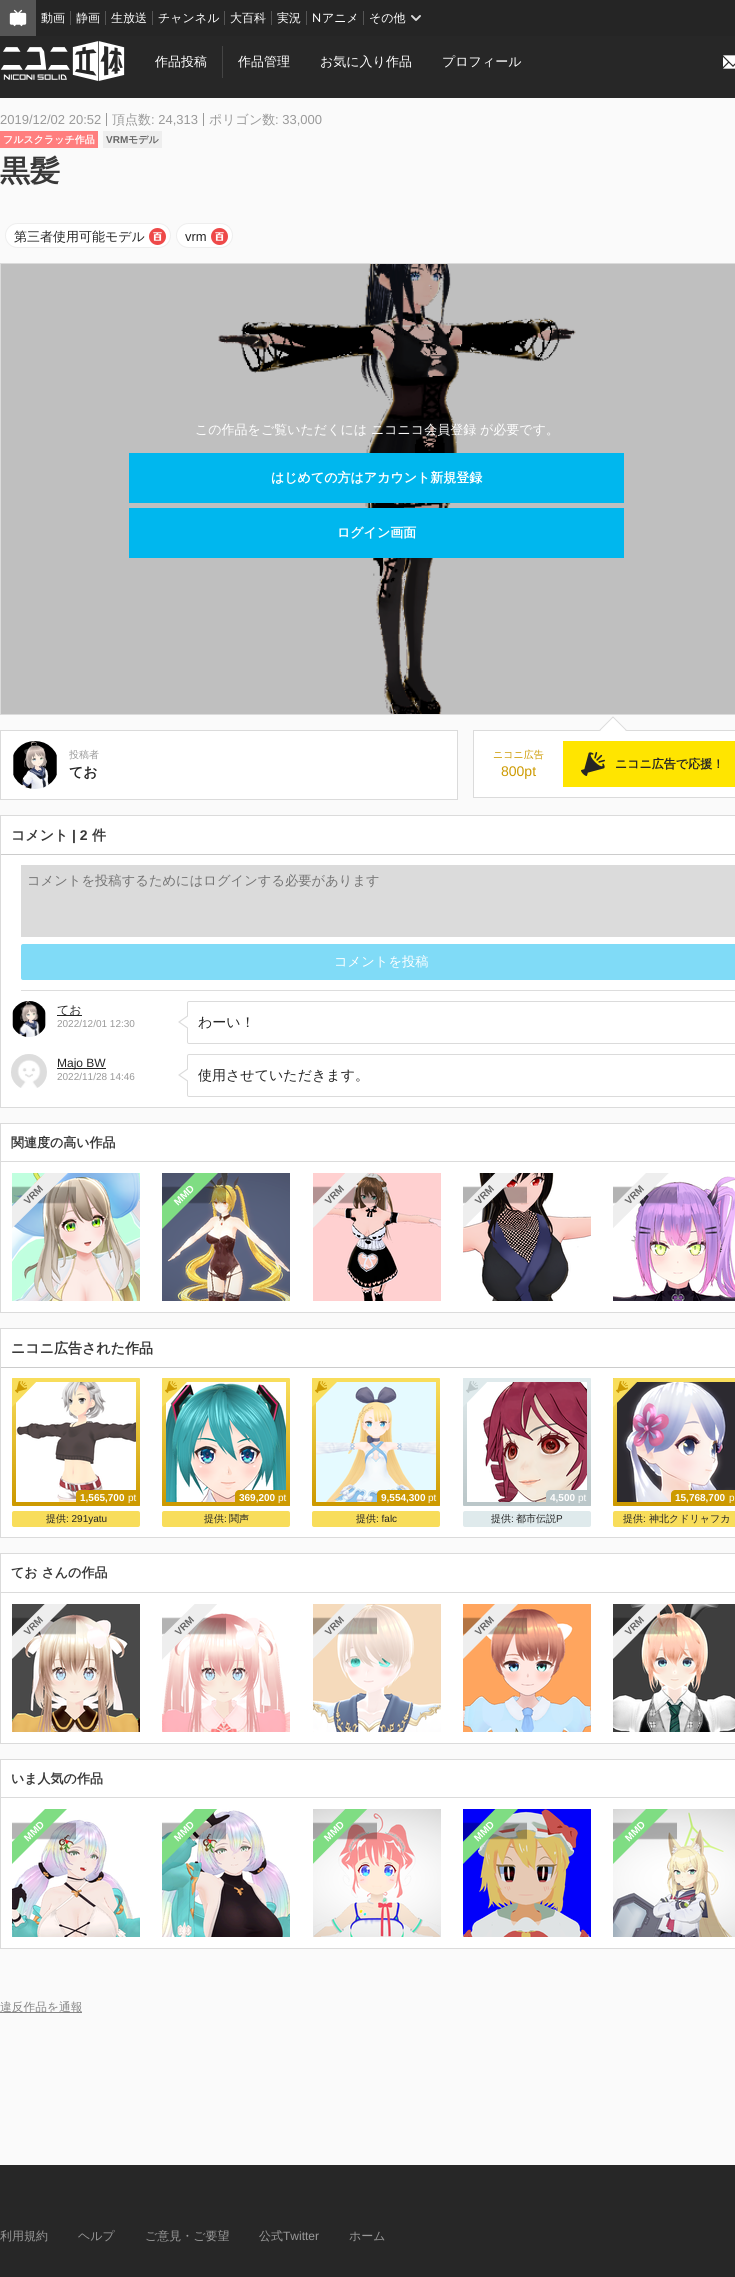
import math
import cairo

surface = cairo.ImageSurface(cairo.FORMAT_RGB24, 735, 2277)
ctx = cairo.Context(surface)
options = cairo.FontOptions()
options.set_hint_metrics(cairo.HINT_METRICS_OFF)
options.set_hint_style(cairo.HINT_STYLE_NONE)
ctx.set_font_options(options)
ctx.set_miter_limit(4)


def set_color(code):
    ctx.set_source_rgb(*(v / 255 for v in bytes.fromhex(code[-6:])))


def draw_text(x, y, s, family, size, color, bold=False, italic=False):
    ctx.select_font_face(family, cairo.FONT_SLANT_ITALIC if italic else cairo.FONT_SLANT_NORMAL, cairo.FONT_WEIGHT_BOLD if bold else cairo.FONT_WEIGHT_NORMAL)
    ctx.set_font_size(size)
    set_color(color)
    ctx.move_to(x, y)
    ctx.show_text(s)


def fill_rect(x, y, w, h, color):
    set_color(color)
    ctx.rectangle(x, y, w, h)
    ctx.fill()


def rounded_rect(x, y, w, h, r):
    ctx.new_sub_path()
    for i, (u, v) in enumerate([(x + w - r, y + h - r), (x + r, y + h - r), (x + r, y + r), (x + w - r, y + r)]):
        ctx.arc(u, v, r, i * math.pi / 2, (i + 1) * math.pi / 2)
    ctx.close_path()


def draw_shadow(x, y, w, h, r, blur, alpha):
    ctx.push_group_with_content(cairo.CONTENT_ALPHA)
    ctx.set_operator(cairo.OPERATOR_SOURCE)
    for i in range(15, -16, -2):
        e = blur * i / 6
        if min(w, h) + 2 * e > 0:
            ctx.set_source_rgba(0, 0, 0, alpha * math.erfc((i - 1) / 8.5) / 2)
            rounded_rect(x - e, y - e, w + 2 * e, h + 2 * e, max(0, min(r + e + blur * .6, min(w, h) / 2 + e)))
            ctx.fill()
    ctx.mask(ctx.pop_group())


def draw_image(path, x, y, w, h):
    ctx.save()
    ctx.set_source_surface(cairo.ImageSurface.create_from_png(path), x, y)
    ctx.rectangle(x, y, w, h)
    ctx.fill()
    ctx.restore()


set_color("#fafafa")
ctx.paint()
fill_rect(36, 0, 699, 36, "#252525")
fill_rect(0, 0, 36, 36, "#555555")
draw_image("assets/img1.png", 9, 9, 18, 18)
draw_text(41, 22, "動画", "WenQuanYi Zen Hei Medium", 12, "#ffffff")
fill_rect(70, 11, 1, 14, "#555555")
draw_text(76, 22, "静画", "WenQuanYi Zen Hei Medium", 12, "#ffffff")
fill_rect(105, 11, 1, 14, "#555555")
draw_text(111, 22, "生放送", "WenQuanYi Zen Hei Medium", 12, "#ffffff")
fill_rect(152, 11, 1, 14, "#555555")
draw_text(158, 22, "チャンネル", "WenQuanYi Zen Hei Medium", 12, "#ffffff")
fill_rect(224, 11, 1, 14, "#555555")
draw_text(230, 22, "大百科", "WenQuanYi Zen Hei Medium", 12, "#ffffff")
fill_rect(271, 11, 1, 14, "#555555")
draw_text(277, 22, "実況", "WenQuanYi Zen Hei Medium", 12, "#ffffff")
fill_rect(306, 11, 1, 14, "#555555")
draw_text(312, 22, "N", "Lato", 12, "#ffffff")
draw_text(322, 22, "アニメ", "WenQuanYi Zen Hei Medium", 12, "#ffffff")
fill_rect(363, 11, 1, 14, "#555555")
draw_text(369, 22, "その他", "WenQuanYi Zen Hei Medium", 12, "#ffffff")
draw_image("assets/img2.png", 411, 15, 10, 6)
fill_rect(0, 36, 735, 62, "#272727")
draw_image("assets/img3.png", 0, 41, 125, 40)
draw_text(155, 66, "作品投稿", "WenQuanYi Zen Hei Medium", 13, "#ffffff")
fill_rect(222, 46, 1, 32, "#444444")
draw_text(238, 66, "作品管理", "WenQuanYi Zen Hei Medium", 13, "#ffffff")
draw_text(320, 66, "お気に入り作品", "WenQuanYi Zen Hei Medium", 13, "#ffffff")
draw_text(442, 66, "プロフィール", "WenQuanYi Zen Hei Medium", 13, "#ffffff")
draw_image("assets/img4.png", 723, 55, 12, 14)
draw_text(0, 124, "2019/12/02 20:52", "Liberation Sans", 13, "#999999")
fill_rect(106, 113, 1, 13, "#999999")
draw_text(112, 124, "頂点数", "WenQuanYi Zen Hei Medium", 13, "#999999")
draw_text(151, 124, ": 24,313", "Liberation Sans", 13, "#999999")
fill_rect(203, 113, 1, 13, "#999999")
draw_text(209, 124, "ポリゴン数", "WenQuanYi Zen Hei Medium", 13, "#999999")
draw_text(275, 124, ": 33,000", "Liberation Sans", 13, "#999999")
fill_rect(0, 131, 98, 17, "#ff7e7e")
draw_text(3, 143, "フルスクラッチ作品", "WenQuanYi Zen Hei", 10, "#ffffff", bold=True)
fill_rect(103, 131, 59, 17, "#eeeeee")
draw_text(106, 143, "VRM", "Liberation Sans", 10, "#666666", bold=True)
draw_text(128, 143, "モデル", "WenQuanYi Zen Hei", 10, "#666666", bold=True)
draw_text(0, 181, "黒髪", "WenQuanYi Zen Hei", 30, "#383838", bold=True)
set_color("#ffffff")
rounded_rect(5.5, 223.5, 165, 24, 12)
ctx.fill_preserve()
set_color("#eeeeee")
ctx.set_line_width(1)
ctx.stroke()
draw_text(14, 241, "第三者使用可能モデル", "WenQuanYi Zen Hei Medium", 13, "#252525")
set_color("#ee4949")
ctx.new_path()
ctx.arc(157.5, 236.5, 8.5, 0, 2 * math.pi)
ctx.fill()
draw_image("assets/img5.png", 153, 232, 9, 9)
set_color("#ffffff")
rounded_rect(176.5, 223.5, 56, 24, 12)
ctx.fill_preserve()
set_color("#eeeeee")
ctx.stroke()
draw_text(185, 241, "vrm", "Liberation Sans", 13, "#252525")
set_color("#ee4949")
ctx.new_path()
ctx.arc(219.5, 236.5, 8.5, 0, 2 * math.pi)
ctx.fill()
draw_image("assets/img5.png", 215, 232, 9, 9)
set_color("#bfbfbf")
ctx.rectangle(0.5, 263.5, 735, 451)
ctx.fill_preserve()
set_color("#dbdbdb")
ctx.stroke()
draw_image("assets/img6.png", 218, 264, 358, 450)
draw_text(195, 434, "この作品をご覧いただくには ニコニコ会員登録 が必要です。", "WenQuanYi Zen Hei Medium", 13, "#ffffff")
fill_rect(129, 453, 495, 50, "#00b7ee")
draw_text(271, 482, "はじめての方はアカウント新規登録", "WenQuanYi Zen Hei", 13, "#ffffff", bold=True)
fill_rect(129, 508, 495, 50, "#00b7ee")
draw_text(337, 537, "ログイン画面", "WenQuanYi Zen Hei", 13, "#ffffff", bold=True)
ctx.rectangle(0.5, 730.5, 457, 69)
ctx.fill_preserve()
set_color("#dbdbdb")
ctx.stroke()
draw_image("assets/img7.png", 13, 741, 44, 48)
draw_text(69, 758, "投稿者", "WenQuanYi Zen Hei Medium", 10, "#999999")
draw_text(69, 777, "てお", "WenQuanYi Zen Hei", 14, "#252525", bold=True)
ctx.rectangle(473.5, 730.5, 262, 67)
set_color("#dbdbdb")
ctx.stroke()
set_color("#ffffff")
ctx.new_path()
ctx.move_to(599, 730.5)
ctx.line_to(613, 716.5)
ctx.line_to(627, 730.5)
ctx.line_to(613, 745)
ctx.close_path()
ctx.fill()
ctx.new_path()
ctx.move_to(599.5, 730.5)
ctx.line_to(613, 717)
ctx.line_to(626.5, 730.5)
ctx.line_to(613, 744)
ctx.close_path()
set_color("#dbdbdb")
ctx.stroke()
fill_rect(474, 731, 261, 66, "#ffffff")
draw_text(493, 758, "ニコニ広告", "WenQuanYi Zen Hei Medium", 10, "#cd9a01")
draw_text(501, 776, "800pt", "Liberation Sans", 14, "#cd9a01")
fill_rect(563, 741, 172, 46, "#ffe500")
draw_image("assets/img8.png", 581, 752, 24, 24)
draw_text(615, 768, "ニコニ広告で応援！", "WenQuanYi Zen Hei", 12, "#252525", bold=True)
set_color("#ffffff")
ctx.rectangle(0.5, 815.5, 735, 292)
ctx.fill_preserve()
set_color("#dbdbdb")
ctx.stroke()
fill_rect(1, 854, 734, 1, "#cccccc")
draw_text(11, 840, "コメント", "WenQuanYi Zen Hei", 14, "#383838", bold=True)
draw_text(72, 840, "| 2", "Liberation Sans", 14, "#383838", bold=True)
draw_text(92, 840, "件", "WenQuanYi Zen Hei", 14, "#383838", bold=True)
fill_rect(21, 990, 714, 1, "#dddddd")
fill_rect(21, 865, 714, 72, "#dbdbdb")
draw_text(27, 885, "コメントを投稿するためにはログインする必要があります", "WenQuanYi Zen Hei Medium", 13.3, "#757575")
set_color("#80dbf7")
rounded_rect(21, 944, 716, 36, 2)
ctx.fill()
draw_text(334, 966, "コメントを投稿", "WenQuanYi Zen Hei Medium", 13.3, "#ffffff")
draw_image("assets/img9.png", 12, 1001, 35, 36)
fill_rect(57, 1015, 25, 1, "#252525")
draw_text(57, 1014, "てお", "WenQuanYi Zen Hei Medium", 12, "#252525")
draw_text(57, 1027, "2022/12/01 12:30", "Liberation Sans", 10, "#999999")
rounded_rect(187.5, 1001.5, 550, 42, 1.5)
set_color("#dbdbdb")
ctx.stroke()
ctx.new_path()
ctx.move_to(188, 1015)
ctx.line_to(188, 1029)
ctx.line_to(178, 1022)
ctx.close_path()
ctx.fill()
set_color("#ffffff")
ctx.new_path()
ctx.move_to(190, 1015)
ctx.line_to(190, 1029)
ctx.line_to(180, 1022)
ctx.close_path()
ctx.fill()
draw_text(198, 1027, "わーい！", "WenQuanYi Zen Hei Medium", 14, "#252525")
draw_image("assets/img10.png", 11, 1054, 36, 34)
fill_rect(57, 1068, 49, 1, "#252525")
draw_text(57, 1067, "Majo BW", "Liberation Sans", 12, "#252525")
draw_text(57, 1080, "2022/11/28 14:46", "Liberation Sans", 10, "#999999")
rounded_rect(187.5, 1054.5, 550, 42, 1.5)
set_color("#dbdbdb")
ctx.stroke()
ctx.new_path()
ctx.move_to(188, 1068)
ctx.line_to(188, 1082)
ctx.line_to(178, 1075)
ctx.close_path()
ctx.fill()
set_color("#ffffff")
ctx.new_path()
ctx.move_to(190, 1068)
ctx.line_to(190, 1082)
ctx.line_to(180, 1075)
ctx.close_path()
ctx.fill()
draw_text(198, 1080, "使用させていただきます。", "WenQuanYi Zen Hei Medium", 14, "#252525")
set_color("#ffffff")
ctx.rectangle(0.5, 1123.5, 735, 189)
ctx.fill_preserve()
set_color("#dbdbdb")
ctx.stroke()
fill_rect(1, 1161, 734, 1, "#dbdbdb")
draw_text(11, 1147, "関連度の高い作品", "WenQuanYi Zen Hei", 13, "#383838", bold=True)
draw_image("assets/img11.png", 12, 1173, 128, 128)
ctx.save()
ctx.rectangle(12, 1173, 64, 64)
ctx.clip()
set_color("#000000")
draw_shadow(-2, 1187, 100, 16, 0, 0.5, 0.3)
ctx.restore()
ctx.save()
ctx.rectangle(12, 1173, 64, 64)
ctx.clip()
set_color("#eeeeee")
ctx.new_path()
ctx.move_to(-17, 1235)
ctx.line_to(74, 1144)
ctx.line_to(85, 1156)
ctx.line_to(-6, 1246)
ctx.close_path()
ctx.fill()
ctx.restore()
ctx.save()
ctx.translate(28, 1205)
ctx.rotate(-45 * math.pi / 180)
draw_text(0, 0, "VRM", "Liberation Sans", 10, "#666666", bold=True)
ctx.restore()
draw_image("assets/img12.png", 162, 1173, 128, 128)
ctx.save()
ctx.rectangle(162, 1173, 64, 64)
ctx.clip()
set_color("#000000")
draw_shadow(120, 1187, 128, 16, 0, 0.5, 0.3)
ctx.restore()
ctx.save()
ctx.rectangle(162, 1173, 64, 64)
ctx.clip()
set_color("#7fdd83")
ctx.new_path()
ctx.move_to(133, 1235)
ctx.line_to(224, 1144)
ctx.line_to(235, 1156)
ctx.line_to(145, 1246)
ctx.close_path()
ctx.fill()
ctx.restore()
ctx.save()
ctx.translate(178, 1206)
ctx.rotate(-45 * math.pi / 180)
draw_text(0, 0, "MMD", "Liberation Sans", 10, "#ffffff", bold=True)
ctx.restore()
draw_image("assets/img13.png", 313, 1173, 128, 128)
ctx.save()
ctx.rectangle(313, 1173, 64, 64)
ctx.clip()
set_color("#000000")
draw_shadow(271, 1187, 128, 16, 0, 0.5, 0.3)
ctx.restore()
ctx.save()
ctx.rectangle(313, 1173, 64, 64)
ctx.clip()
set_color("#eeeeee")
ctx.new_path()
ctx.move_to(284, 1235)
ctx.line_to(374, 1144)
ctx.line_to(385, 1156)
ctx.line_to(295, 1246)
ctx.close_path()
ctx.fill()
ctx.restore()
ctx.save()
ctx.translate(329, 1205)
ctx.rotate(-45 * math.pi / 180)
draw_text(0, 0, "VRM", "Liberation Sans", 10, "#666666", bold=True)
ctx.restore()
draw_image("assets/img14.png", 463, 1173, 128, 128)
ctx.save()
ctx.rectangle(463, 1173, 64, 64)
ctx.clip()
set_color("#000000")
draw_shadow(421, 1187, 128, 16, 0, 0.5, 0.3)
ctx.restore()
ctx.save()
ctx.rectangle(463, 1173, 64, 64)
ctx.clip()
set_color("#eeeeee")
ctx.new_path()
ctx.move_to(434, 1235)
ctx.line_to(524, 1144)
ctx.line_to(536, 1156)
ctx.line_to(445, 1246)
ctx.close_path()
ctx.fill()
ctx.restore()
ctx.save()
ctx.translate(479, 1205)
ctx.rotate(-45 * math.pi / 180)
draw_text(0, 0, "VRM", "Liberation Sans", 10, "#666666", bold=True)
ctx.restore()
draw_image("assets/img15.png", 613, 1176, 122, 125)
ctx.save()
ctx.rectangle(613, 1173, 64, 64)
ctx.clip()
set_color("#000000")
draw_shadow(571, 1187, 128, 16, 0, 0.5, 0.3)
ctx.restore()
ctx.save()
ctx.rectangle(613, 1173, 64, 64)
ctx.clip()
set_color("#eeeeee")
ctx.new_path()
ctx.move_to(584, 1235)
ctx.line_to(675, 1144)
ctx.line_to(686, 1156)
ctx.line_to(595, 1246)
ctx.close_path()
ctx.fill()
ctx.restore()
ctx.save()
ctx.translate(629, 1205)
ctx.rotate(-45 * math.pi / 180)
draw_text(0, 0, "VRM", "Liberation Sans", 10, "#666666", bold=True)
ctx.restore()
set_color("#ffffff")
ctx.rectangle(0.5, 1328.5, 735, 209)
ctx.fill_preserve()
set_color("#dbdbdb")
ctx.stroke()
fill_rect(1, 1367, 734, 1, "#cccccc")
draw_text(11, 1353, "ニコニ広告された作品", "WenQuanYi Zen Hei", 14, "#383838", bold=True)
draw_image("assets/img16.png", 12, 1378, 128, 128)
set_color("#f8dd5b")
ctx.new_path()
ctx.move_to(13, 1378)
ctx.line_to(139, 1378)
ctx.curve_to(139.5, 1378, 140, 1378.5, 140, 1379)
ctx.line_to(140, 1382)
ctx.line_to(12, 1382)
ctx.line_to(12, 1379)
ctx.curve_to(12, 1378.5, 12.5, 1378, 13, 1378)
ctx.close_path()
ctx.fill()
set_color("#cd9a01")
ctx.new_path()
ctx.move_to(12, 1502)
ctx.line_to(140, 1502)
ctx.line_to(140, 1505)
ctx.curve_to(140, 1505.5, 139.5, 1506, 139, 1506)
ctx.line_to(13, 1506)
ctx.curve_to(12.5, 1506, 12, 1505.5, 12, 1505)
ctx.close_path()
ctx.fill()
gradient = cairo.LinearGradient(14, 1382, 14, 1502)
gradient.add_color_stop_rgba(0, 0.973, 0.867, 0.357, 1)
gradient.add_color_stop_rgba(1, 0.804, 0.604, 0.004, 1)
ctx.set_source(gradient)
ctx.rectangle(12, 1402, 4, 100)
ctx.fill()
gradient = cairo.LinearGradient(138, 1382, 138, 1502)
gradient.add_color_stop_rgba(0, 0.973, 0.867, 0.357, 1)
gradient.add_color_stop_rgba(1, 0.804, 0.604, 0.004, 1)
ctx.set_source(gradient)
ctx.rectangle(136, 1382, 4, 108)
ctx.fill()
set_color("#f8dd5b")
ctx.new_path()
ctx.move_to(13, 1378)
ctx.curve_to(12.5, 1378, 12, 1378.5, 12, 1379)
ctx.line_to(12, 1407)
ctx.line_to(40, 1378)
ctx.close_path()
ctx.fill()
draw_image("assets/img17.png", 15, 1381, 12, 12)
set_color("#cd9a01")
ctx.new_path()
ctx.move_to(80, 1490)
ctx.line_to(140, 1490)
ctx.line_to(140, 1505)
ctx.curve_to(140, 1505.5, 139.5, 1506, 139, 1506)
ctx.line_to(76, 1506)
ctx.line_to(76, 1494)
ctx.curve_to(76, 1492, 78, 1490, 80, 1490)
ctx.close_path()
ctx.fill()
draw_text(80, 1501, "1,565,700", "Liberation Sans", 10, "#ffffff", bold=True)
draw_text(128, 1501, "pt", "Liberation Sans", 10, "#ffffff")
set_color("#f8dd5b")
rounded_rect(12, 1511, 128, 16, 2)
ctx.fill()
draw_text(46, 1522, "提供", "WenQuanYi Zen Hei Medium", 10, "#252525")
draw_text(66, 1522, ": 291yatu", "Liberation Sans", 10, "#252525")
draw_image("assets/img18.png", 162, 1383, 128, 123)
set_color("#f8dd5b")
ctx.new_path()
ctx.move_to(163, 1378)
ctx.line_to(289, 1378)
ctx.curve_to(289.5, 1378, 290, 1378.5, 290, 1379)
ctx.line_to(290, 1382)
ctx.line_to(162, 1382)
ctx.line_to(162, 1379)
ctx.curve_to(162, 1378.5, 162.5, 1378, 163, 1378)
ctx.close_path()
ctx.fill()
set_color("#cd9a01")
ctx.new_path()
ctx.move_to(162, 1502)
ctx.line_to(290, 1502)
ctx.line_to(290, 1505)
ctx.curve_to(290, 1505.5, 289.5, 1506, 289, 1506)
ctx.line_to(163, 1506)
ctx.curve_to(162.5, 1506, 162, 1505.5, 162, 1505)
ctx.close_path()
ctx.fill()
gradient = cairo.LinearGradient(164, 1382, 164, 1502)
gradient.add_color_stop_rgba(0, 0.973, 0.867, 0.357, 1)
gradient.add_color_stop_rgba(1, 0.804, 0.604, 0.004, 1)
ctx.set_source(gradient)
ctx.rectangle(162, 1403, 4, 99)
ctx.fill()
gradient = cairo.LinearGradient(288, 1382, 288, 1502)
gradient.add_color_stop_rgba(0, 0.973, 0.867, 0.357, 1)
gradient.add_color_stop_rgba(1, 0.804, 0.604, 0.004, 1)
ctx.set_source(gradient)
ctx.rectangle(286, 1382, 4, 108)
ctx.fill()
set_color("#f8dd5b")
ctx.new_path()
ctx.move_to(163, 1378)
ctx.curve_to(162.5, 1378, 162, 1378.5, 162, 1379)
ctx.line_to(162, 1407)
ctx.line_to(191, 1378)
ctx.close_path()
ctx.fill()
draw_image("assets/img19.png", 165, 1381, 12, 12)
set_color("#cd9a01")
ctx.new_path()
ctx.move_to(239, 1490)
ctx.line_to(290, 1490)
ctx.line_to(290, 1505)
ctx.curve_to(290, 1505.5, 289.5, 1506, 289, 1506)
ctx.line_to(235, 1506)
ctx.line_to(235, 1494)
ctx.curve_to(235, 1492, 237, 1490, 239, 1490)
ctx.close_path()
ctx.fill()
draw_text(239, 1501, "369,200", "Liberation Sans", 10, "#ffffff", bold=True)
draw_text(278, 1501, "pt", "Liberation Sans", 10, "#ffffff")
set_color("#f8dd5b")
rounded_rect(162, 1511, 128, 16, 2)
ctx.fill()
draw_text(204, 1522, "提供", "WenQuanYi Zen Hei Medium", 10, "#252525")
draw_text(224, 1522, ":", "Liberation Sans", 10, "#252525")
draw_text(229, 1522, "鬨声", "WenQuanYi Zen Hei Medium", 10, "#252525")
draw_image("assets/img20.png", 312, 1378, 128, 128)
set_color("#f8dd5b")
ctx.new_path()
ctx.move_to(313, 1378)
ctx.line_to(439, 1378)
ctx.curve_to(439.5, 1378, 440, 1378.5, 440, 1379)
ctx.line_to(440, 1382)
ctx.line_to(312, 1382)
ctx.line_to(312, 1379)
ctx.curve_to(312, 1378.5, 312.5, 1378, 313, 1378)
ctx.close_path()
ctx.fill()
set_color("#cd9a01")
ctx.new_path()
ctx.move_to(312, 1502)
ctx.line_to(440, 1502)
ctx.line_to(440, 1505)
ctx.curve_to(440, 1505.5, 439.5, 1506, 439, 1506)
ctx.line_to(313, 1506)
ctx.curve_to(312.5, 1506, 312, 1505.5, 312, 1505)
ctx.close_path()
ctx.fill()
gradient = cairo.LinearGradient(314, 1382, 314, 1502)
gradient.add_color_stop_rgba(0, 0.973, 0.867, 0.357, 1)
gradient.add_color_stop_rgba(1, 0.804, 0.604, 0.004, 1)
ctx.set_source(gradient)
ctx.rectangle(312, 1403, 4, 99)
ctx.fill()
gradient = cairo.LinearGradient(438, 1382, 438, 1502)
gradient.add_color_stop_rgba(0, 0.973, 0.867, 0.357, 1)
gradient.add_color_stop_rgba(1, 0.804, 0.604, 0.004, 1)
ctx.set_source(gradient)
ctx.rectangle(436, 1382, 4, 108)
ctx.fill()
set_color("#f8dd5b")
ctx.new_path()
ctx.move_to(313, 1378)
ctx.curve_to(312.5, 1378, 312, 1378.5, 312, 1379)
ctx.line_to(312, 1407)
ctx.line_to(341, 1378)
ctx.close_path()
ctx.fill()
draw_image("assets/img21.png", 315, 1381, 12, 12)
set_color("#cd9a01")
ctx.new_path()
ctx.move_to(381, 1490)
ctx.line_to(440, 1490)
ctx.line_to(440, 1505)
ctx.curve_to(440, 1505.5, 439.5, 1506, 439, 1506)
ctx.line_to(377, 1506)
ctx.line_to(377, 1494)
ctx.curve_to(377, 1492, 379, 1490, 381, 1490)
ctx.close_path()
ctx.fill()
draw_text(381, 1501, "9,554,300", "Liberation Sans", 10, "#ffffff", bold=True)
draw_text(428, 1501, "pt", "Liberation Sans", 10, "#ffffff")
set_color("#f8dd5b")
rounded_rect(312, 1511, 128, 16, 2)
ctx.fill()
draw_text(356, 1522, "提供", "WenQuanYi Zen Hei Medium", 10, "#252525")
draw_text(376, 1522, ": falc", "Liberation Sans", 10, "#252525")
draw_image("assets/img22.png", 483, 1378, 108, 128)
set_color("#dfeaec")
ctx.new_path()
ctx.move_to(464, 1378)
ctx.line_to(590, 1378)
ctx.curve_to(590.5, 1378, 591, 1378.5, 591, 1379)
ctx.line_to(591, 1382)
ctx.line_to(463, 1382)
ctx.line_to(463, 1379)
ctx.curve_to(463, 1378.5, 463.5, 1378, 464, 1378)
ctx.close_path()
ctx.fill()
set_color("#bbc7c9")
ctx.new_path()
ctx.move_to(463, 1502)
ctx.line_to(591, 1502)
ctx.line_to(591, 1505)
ctx.curve_to(591, 1505.5, 590.5, 1506, 590, 1506)
ctx.line_to(464, 1506)
ctx.curve_to(463.5, 1506, 463, 1505.5, 463, 1505)
ctx.close_path()
ctx.fill()
gradient = cairo.LinearGradient(465, 1382, 465, 1502)
gradient.add_color_stop_rgba(0, 0.875, 0.918, 0.925, 1)
gradient.add_color_stop_rgba(1, 0.733, 0.78, 0.788, 1)
ctx.set_source(gradient)
ctx.rectangle(463, 1402, 4, 100)
ctx.fill()
gradient = cairo.LinearGradient(589, 1382, 589, 1502)
gradient.add_color_stop_rgba(0, 0.875, 0.918, 0.925, 1)
gradient.add_color_stop_rgba(1, 0.733, 0.78, 0.788, 1)
ctx.set_source(gradient)
ctx.rectangle(587, 1382, 4, 108)
ctx.fill()
set_color("#dfeaec")
ctx.new_path()
ctx.move_to(464, 1378)
ctx.curve_to(463.5, 1378, 463, 1378.5, 463, 1379)
ctx.line_to(463, 1407)
ctx.line_to(491, 1378)
ctx.close_path()
ctx.fill()
draw_image("assets/img23.png", 466, 1381, 12, 12)
set_color("#bbc7c9")
ctx.new_path()
ctx.move_to(550, 1490)
ctx.line_to(591, 1490)
ctx.line_to(591, 1505)
ctx.curve_to(591, 1505.5, 590.5, 1506, 590, 1506)
ctx.line_to(546, 1506)
ctx.line_to(546, 1494)
ctx.curve_to(546, 1492, 548, 1490, 550, 1490)
ctx.close_path()
ctx.fill()
draw_text(550, 1501, "4,500", "Liberation Sans", 10, "#ffffff", bold=True)
draw_text(578, 1501, "pt", "Liberation Sans", 10, "#ffffff")
set_color("#dfeaec")
rounded_rect(463, 1511, 128, 16, 2)
ctx.fill()
draw_text(491, 1522, "提供", "WenQuanYi Zen Hei Medium", 10, "#252525")
draw_text(511, 1522, ":", "Liberation Sans", 10, "#252525")
draw_text(516, 1522, "都市伝説", "WenQuanYi Zen Hei Medium", 10, "#252525")
draw_text(556, 1522, "P", "Liberation Sans", 10, "#252525")
draw_image("assets/img24.png", 613, 1378, 122, 128)
set_color("#f8dd5b")
ctx.new_path()
ctx.move_to(614, 1378)
ctx.line_to(735, 1378)
ctx.curve_to(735.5, 1378, 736, 1378.5, 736, 1379)
ctx.line_to(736, 1382)
ctx.line_to(613, 1382)
ctx.line_to(613, 1379)
ctx.curve_to(613, 1378.5, 613.5, 1378, 614, 1378)
ctx.close_path()
ctx.fill()
set_color("#cd9a01")
ctx.new_path()
ctx.move_to(613, 1502)
ctx.line_to(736, 1502)
ctx.line_to(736, 1505)
ctx.curve_to(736, 1505.5, 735.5, 1506, 735, 1506)
ctx.line_to(614, 1506)
ctx.curve_to(613.5, 1506, 613, 1505.5, 613, 1505)
ctx.close_path()
ctx.fill()
gradient = cairo.LinearGradient(615, 1382, 615, 1502)
gradient.add_color_stop_rgba(0, 0.973, 0.867, 0.357, 1)
gradient.add_color_stop_rgba(1, 0.804, 0.604, 0.004, 1)
ctx.set_source(gradient)
ctx.rectangle(613, 1402, 4, 100)
ctx.fill()
set_color("#f8dd5b")
ctx.new_path()
ctx.move_to(614, 1378)
ctx.curve_to(613.5, 1378, 613, 1378.5, 613, 1379)
ctx.line_to(613, 1407)
ctx.line_to(641, 1378)
ctx.close_path()
ctx.fill()
draw_image("assets/img25.png", 616, 1381, 12, 12)
set_color("#cd9a01")
ctx.new_path()
ctx.move_to(675, 1490)
ctx.line_to(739, 1490)
ctx.line_to(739, 1505)
ctx.curve_to(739, 1505.5, 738.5, 1506, 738, 1506)
ctx.line_to(671, 1506)
ctx.line_to(671, 1494)
ctx.curve_to(671, 1492, 673, 1490, 675, 1490)
ctx.close_path()
ctx.fill()
draw_text(675, 1501, "15,768,700", "Liberation Sans", 10, "#ffffff", bold=True)
draw_text(729, 1501, "p", "Liberation Sans", 10, "#ffffff")
set_color("#f8dd5b")
rounded_rect(613, 1511, 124, 16, 2)
ctx.fill()
draw_text(623, 1522, "提供", "WenQuanYi Zen Hei Medium", 10, "#252525")
draw_text(643, 1522, ":", "Liberation Sans", 10, "#252525")
draw_text(649, 1522, "神北クドリャフカ", "WenQuanYi Zen Hei Medium", 10, "#252525")
set_color("#ffffff")
ctx.rectangle(0.5, 1553.5, 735, 190)
ctx.fill_preserve()
set_color("#dbdbdb")
ctx.stroke()
fill_rect(1, 1592, 734, 1, "#dbdbdb")
draw_text(11, 1577, "てお さんの作品", "WenQuanYi Zen Hei", 13, "#383838", bold=True)
draw_image("assets/img26.png", 12, 1604, 128, 128)
ctx.save()
ctx.rectangle(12, 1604, 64, 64)
ctx.clip()
set_color("#000000")
draw_shadow(-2, 1618, 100, 16, 0, 0.5, 0.3)
ctx.restore()
ctx.save()
ctx.rectangle(12, 1604, 64, 64)
ctx.clip()
set_color("#eeeeee")
ctx.new_path()
ctx.move_to(-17, 1665)
ctx.line_to(74, 1575)
ctx.line_to(85, 1586)
ctx.line_to(-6, 1677)
ctx.close_path()
ctx.fill()
ctx.restore()
ctx.save()
ctx.translate(28, 1636)
ctx.rotate(-45 * math.pi / 180)
draw_text(0, 0, "VRM", "Liberation Sans", 10, "#666666", bold=True)
ctx.restore()
draw_image("assets/img27.png", 162, 1613, 128, 119)
ctx.save()
ctx.rectangle(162, 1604, 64, 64)
ctx.clip()
set_color("#000000")
draw_shadow(120, 1618, 128, 16, 0, 0.5, 0.3)
ctx.restore()
ctx.save()
ctx.rectangle(162, 1604, 64, 64)
ctx.clip()
set_color("#eeeeee")
ctx.new_path()
ctx.move_to(133, 1665)
ctx.line_to(224, 1575)
ctx.line_to(235, 1586)
ctx.line_to(145, 1677)
ctx.close_path()
ctx.fill()
ctx.restore()
ctx.save()
ctx.translate(179, 1636)
ctx.rotate(-45 * math.pi / 180)
draw_text(0, 0, "VRM", "Liberation Sans", 10, "#666666", bold=True)
ctx.restore()
draw_image("assets/img28.png", 313, 1604, 128, 128)
ctx.save()
ctx.rectangle(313, 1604, 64, 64)
ctx.clip()
set_color("#000000")
draw_shadow(271, 1618, 128, 16, 0, 0.5, 0.3)
ctx.restore()
ctx.save()
ctx.rectangle(313, 1604, 64, 64)
ctx.clip()
set_color("#eeeeee")
ctx.new_path()
ctx.move_to(284, 1665)
ctx.line_to(374, 1575)
ctx.line_to(385, 1586)
ctx.line_to(295, 1677)
ctx.close_path()
ctx.fill()
ctx.restore()
ctx.save()
ctx.translate(329, 1636)
ctx.rotate(-45 * math.pi / 180)
draw_text(0, 0, "VRM", "Liberation Sans", 10, "#666666", bold=True)
ctx.restore()
draw_image("assets/img29.png", 463, 1604, 128, 128)
ctx.save()
ctx.rectangle(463, 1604, 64, 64)
ctx.clip()
set_color("#000000")
draw_shadow(421, 1618, 128, 16, 0, 0.5, 0.3)
ctx.restore()
ctx.save()
ctx.rectangle(463, 1604, 64, 64)
ctx.clip()
set_color("#eeeeee")
ctx.new_path()
ctx.move_to(434, 1665)
ctx.line_to(524, 1575)
ctx.line_to(536, 1586)
ctx.line_to(445, 1677)
ctx.close_path()
ctx.fill()
ctx.restore()
ctx.save()
ctx.translate(479, 1636)
ctx.rotate(-45 * math.pi / 180)
draw_text(0, 0, "VRM", "Liberation Sans", 10, "#666666", bold=True)
ctx.restore()
draw_image("assets/img30.png", 613, 1604, 122, 128)
ctx.save()
ctx.rectangle(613, 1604, 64, 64)
ctx.clip()
set_color("#000000")
draw_shadow(571, 1618, 128, 16, 0, 0.5, 0.3)
ctx.restore()
ctx.save()
ctx.rectangle(613, 1604, 64, 64)
ctx.clip()
set_color("#eeeeee")
ctx.new_path()
ctx.move_to(584, 1665)
ctx.line_to(675, 1575)
ctx.line_to(686, 1586)
ctx.line_to(595, 1677)
ctx.close_path()
ctx.fill()
ctx.restore()
ctx.save()
ctx.translate(629, 1636)
ctx.rotate(-45 * math.pi / 180)
draw_text(0, 0, "VRM", "Liberation Sans", 10, "#666666", bold=True)
ctx.restore()
set_color("#ffffff")
ctx.rectangle(0.5, 1759.5, 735, 189)
ctx.fill_preserve()
set_color("#dbdbdb")
ctx.stroke()
fill_rect(1, 1797, 734, 1, "#dbdbdb")
draw_text(11, 1783, "いま人気の作品", "WenQuanYi Zen Hei", 13, "#383838", bold=True)
draw_image("assets/img31.png", 12, 1819, 128, 118)
ctx.save()
ctx.rectangle(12, 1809, 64, 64)
ctx.clip()
set_color("#000000")
draw_shadow(-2, 1823, 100, 16, 0, 0.5, 0.3)
ctx.restore()
ctx.save()
ctx.rectangle(12, 1809, 64, 64)
ctx.clip()
set_color("#7fdd83")
ctx.new_path()
ctx.move_to(-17, 1871)
ctx.line_to(74, 1780)
ctx.line_to(85, 1791)
ctx.line_to(-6, 1882)
ctx.close_path()
ctx.fill()
ctx.restore()
ctx.save()
ctx.translate(28, 1842)
ctx.rotate(-45 * math.pi / 180)
draw_text(0, 0, "MMD", "Liberation Sans", 10, "#ffffff", bold=True)
ctx.restore()
draw_image("assets/img32.png", 162, 1809, 128, 128)
ctx.save()
ctx.rectangle(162, 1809, 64, 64)
ctx.clip()
set_color("#000000")
draw_shadow(120, 1823, 128, 16, 0, 0.5, 0.3)
ctx.restore()
ctx.save()
ctx.rectangle(162, 1809, 64, 64)
ctx.clip()
set_color("#7fdd83")
ctx.new_path()
ctx.move_to(133, 1871)
ctx.line_to(224, 1780)
ctx.line_to(235, 1791)
ctx.line_to(145, 1882)
ctx.close_path()
ctx.fill()
ctx.restore()
ctx.save()
ctx.translate(178, 1842)
ctx.rotate(-45 * math.pi / 180)
draw_text(0, 0, "MMD", "Liberation Sans", 10, "#ffffff", bold=True)
ctx.restore()
draw_image("assets/img33.png", 313, 1809, 128, 128)
ctx.save()
ctx.rectangle(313, 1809, 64, 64)
ctx.clip()
set_color("#000000")
draw_shadow(271, 1823, 128, 16, 0, 0.5, 0.3)
ctx.restore()
ctx.save()
ctx.rectangle(313, 1809, 64, 64)
ctx.clip()
set_color("#7fdd83")
ctx.new_path()
ctx.move_to(284, 1871)
ctx.line_to(374, 1780)
ctx.line_to(385, 1791)
ctx.line_to(295, 1882)
ctx.close_path()
ctx.fill()
ctx.restore()
ctx.save()
ctx.translate(328, 1842)
ctx.rotate(-45 * math.pi / 180)
draw_text(0, 0, "MMD", "Liberation Sans", 10, "#ffffff", bold=True)
ctx.restore()
draw_image("assets/img34.png", 463, 1809, 128, 128)
ctx.save()
ctx.rectangle(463, 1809, 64, 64)
ctx.clip()
set_color("#000000")
draw_shadow(421, 1823, 128, 16, 0, 0.5, 0.3)
ctx.restore()
ctx.save()
ctx.rectangle(463, 1809, 64, 64)
ctx.clip()
set_color("#7fdd83")
ctx.new_path()
ctx.move_to(434, 1871)
ctx.line_to(524, 1780)
ctx.line_to(536, 1791)
ctx.line_to(445, 1882)
ctx.close_path()
ctx.fill()
ctx.restore()
ctx.save()
ctx.translate(478, 1842)
ctx.rotate(-45 * math.pi / 180)
draw_text(0, 0, "MMD", "Liberation Sans", 10, "#ffffff", bold=True)
ctx.restore()
draw_image("assets/img35.png", 613, 1809, 122, 128)
ctx.save()
ctx.rectangle(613, 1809, 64, 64)
ctx.clip()
set_color("#000000")
draw_shadow(571, 1823, 128, 16, 0, 0.5, 0.3)
ctx.restore()
ctx.save()
ctx.rectangle(613, 1809, 64, 64)
ctx.clip()
set_color("#7fdd83")
ctx.new_path()
ctx.move_to(584, 1871)
ctx.line_to(675, 1780)
ctx.line_to(686, 1791)
ctx.line_to(595, 1882)
ctx.close_path()
ctx.fill()
ctx.restore()
ctx.save()
ctx.translate(629, 1842)
ctx.rotate(-45 * math.pi / 180)
draw_text(0, 0, "MMD", "Liberation Sans", 10, "#ffffff", bold=True)
ctx.restore()
fill_rect(0, 2012, 82, 1, "#858585")
draw_text(0, 2011, "違反作品を通報", "WenQuanYi Zen Hei Medium", 11.75, "#858585")
fill_rect(0, 2165, 735, 112, "#272727")
draw_text(0, 2240, "利用規約", "WenQuanYi Zen Hei Medium", 12, "#999999")
draw_text(78, 2240, "ヘルプ", "WenQuanYi Zen Hei Medium", 12, "#999999")
draw_text(145, 2240, "ご意見・ご要望", "WenQuanYi Zen Hei Medium", 12, "#999999")
draw_text(259, 2240, "公式", "WenQuanYi Zen Hei Medium", 12, "#999999")
draw_text(283, 2240, "Twitter", "Liberation Sans", 12, "#999999")
draw_text(349, 2240, "ホーム", "WenQuanYi Zen Hei Medium", 12, "#999999")
surface.write_to_png("output.png")
